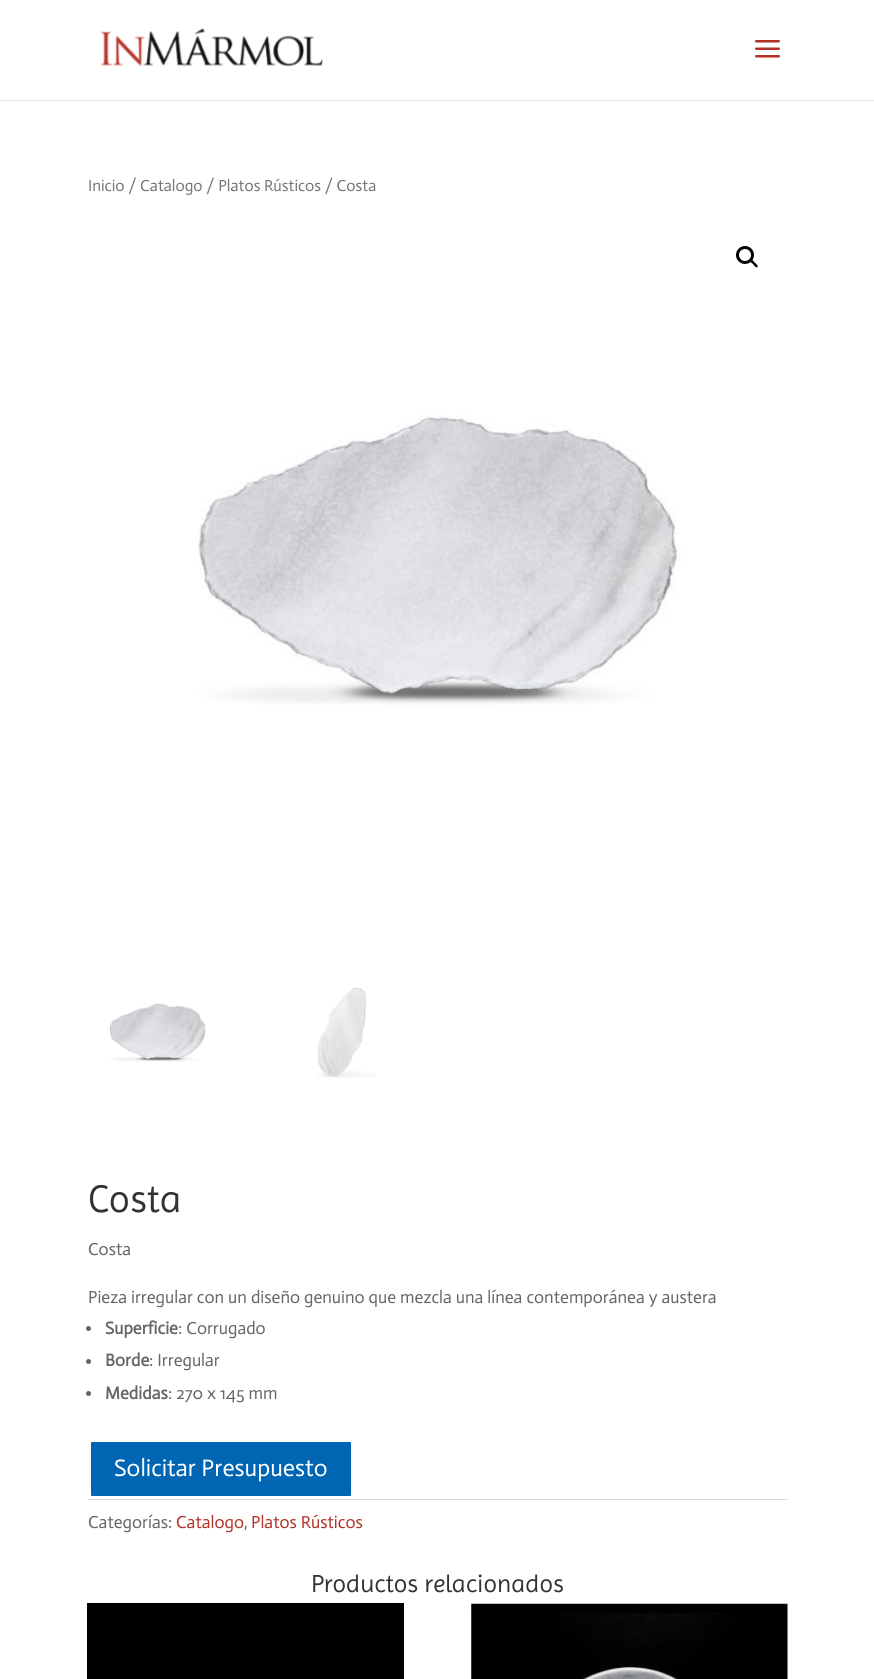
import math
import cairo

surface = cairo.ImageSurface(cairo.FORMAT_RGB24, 874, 1679)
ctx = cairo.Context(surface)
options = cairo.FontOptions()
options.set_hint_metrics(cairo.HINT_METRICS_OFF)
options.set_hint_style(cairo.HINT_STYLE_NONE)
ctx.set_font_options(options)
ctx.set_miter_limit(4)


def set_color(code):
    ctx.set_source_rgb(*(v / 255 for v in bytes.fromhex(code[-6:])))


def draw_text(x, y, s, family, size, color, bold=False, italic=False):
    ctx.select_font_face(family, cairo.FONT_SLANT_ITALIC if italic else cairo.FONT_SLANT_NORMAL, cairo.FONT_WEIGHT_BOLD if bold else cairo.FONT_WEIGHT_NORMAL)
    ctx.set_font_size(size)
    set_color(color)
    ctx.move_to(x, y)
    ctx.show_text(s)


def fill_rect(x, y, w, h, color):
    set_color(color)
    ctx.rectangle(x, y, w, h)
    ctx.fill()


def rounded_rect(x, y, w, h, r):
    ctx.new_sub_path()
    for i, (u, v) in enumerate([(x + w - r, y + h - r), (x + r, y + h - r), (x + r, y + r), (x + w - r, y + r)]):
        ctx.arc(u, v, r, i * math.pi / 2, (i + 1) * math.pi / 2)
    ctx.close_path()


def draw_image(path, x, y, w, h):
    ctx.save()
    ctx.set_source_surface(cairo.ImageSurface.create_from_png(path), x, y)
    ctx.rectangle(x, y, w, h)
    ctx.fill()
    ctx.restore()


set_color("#ffffff")
ctx.paint()
fill_rect(0, 100, 874, 1, "#e6e6e6")
draw_image("assets/img1.png", 100, 28, 223, 39)
draw_image("assets/img2.png", 755, 40, 25, 18)
draw_text(88, 191, "Inicio / Catalogo / Platos Rústicos / Costa", "Actor", 16.1, "#767676")
ctx.new_path()
ctx.arc(745, 255, 7.5, 0, 2 * math.pi)
set_color("#000000")
ctx.set_line_width(3)
ctx.stroke()
ctx.new_path()
ctx.move_to(750, 260)
ctx.curve_to(751.5, 258.5, 754, 261.5, 754.5, 262.5)
ctx.curve_to(755.5, 263, 758.5, 265.5, 757.5, 267)
ctx.curve_to(756, 268.5, 753.5, 265, 753, 264)
ctx.curve_to(752, 263.5, 749, 261, 750, 260)
ctx.close_path()
ctx.fill()
draw_image("assets/img3.png", 198, 415, 484, 290)
draw_image("assets/img4.png", 109, 1003, 97, 59)
draw_image("assets/img5.png", 317, 987, 59, 91)
draw_text(88, 1212, "Costa", "Imprima", 39, "#333333")
draw_text(88, 1255, "Costa", "Actor", 17.5, "#666666")
draw_text(88, 1303, "Pieza irregular con un diseño genuino que mezcla una línea contemporánea y austera", "Actor", 17.5, "#666666")
ctx.new_path()
ctx.arc(88.5, 1328.5, 2.5, 0, 2 * math.pi)
ctx.fill()
draw_text(105, 1334, "Superficie", "Actor", 17.5, "#666666", bold=True)
draw_text(178, 1334, ": Corrugado", "Actor", 17.5, "#666666")
ctx.new_path()
ctx.arc(88.5, 1361.5, 2.5, 0, 2 * math.pi)
ctx.fill()
draw_text(105, 1366, "Borde", "Actor", 17.5, "#666666", bold=True)
draw_text(149, 1366, ": Irregular", "Actor", 17.5, "#666666")
ctx.new_path()
ctx.arc(88.5, 1393.5, 2.5, 0, 2 * math.pi)
ctx.fill()
draw_text(105, 1399, "Medidas", "Actor", 17.5, "#666666", bold=True)
draw_text(168, 1399, ": 270 x 145 mm", "Actor", 17.5, "#666666")
set_color("#0066b4")
rounded_rect(89.5, 1440.5, 263, 57, 2.5)
ctx.fill_preserve()
set_color("#ffffff")
ctx.stroke()
draw_text(114, 1476, "Solicitar Presupuesto", "Actor", 24, "#ffffff")
fill_rect(88, 1499, 700, 1, "#dadada")
draw_text(88, 1528, "Categorías:", "Actor", 17.5, "#666666")
draw_text(176, 1528, "Catalogo", "Actor", 17.5, "#b23227")
draw_text(244, 1528, ",", "Actor", 17.5, "#666666")
draw_text(251, 1528, "Platos Rústicos", "Actor", 17.5, "#b23227")
draw_text(311, 1592, "Productos relacionados", "Imprima", 25, "#333333")
fill_rect(87, 1603, 317, 76, "#000000")
draw_image("assets/img6.png", 471, 1603, 317, 76)
surface.write_to_png("output.png")
